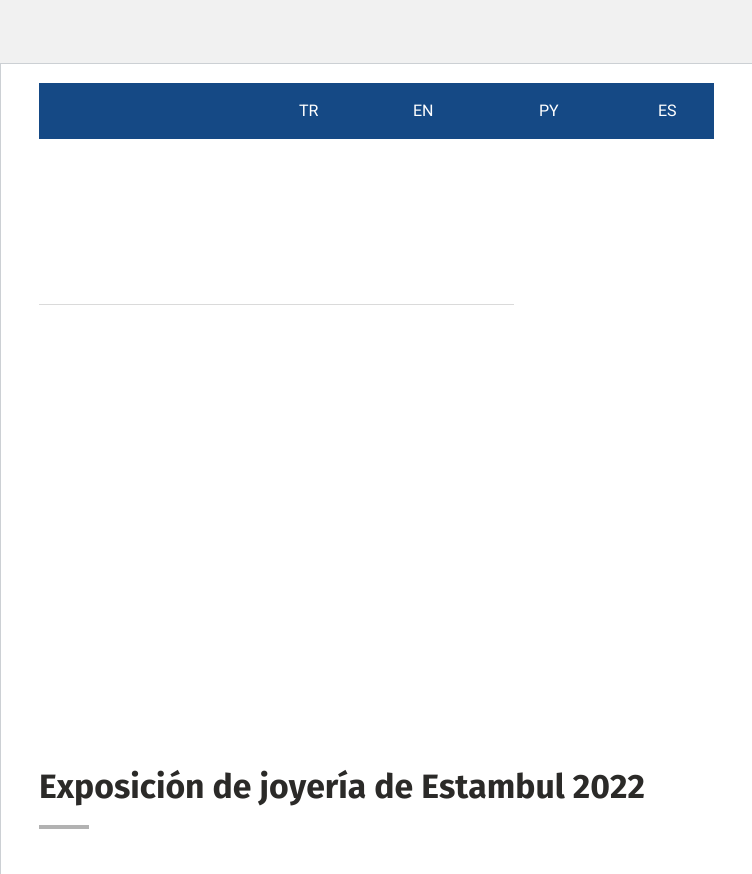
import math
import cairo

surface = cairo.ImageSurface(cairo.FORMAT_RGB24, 752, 874)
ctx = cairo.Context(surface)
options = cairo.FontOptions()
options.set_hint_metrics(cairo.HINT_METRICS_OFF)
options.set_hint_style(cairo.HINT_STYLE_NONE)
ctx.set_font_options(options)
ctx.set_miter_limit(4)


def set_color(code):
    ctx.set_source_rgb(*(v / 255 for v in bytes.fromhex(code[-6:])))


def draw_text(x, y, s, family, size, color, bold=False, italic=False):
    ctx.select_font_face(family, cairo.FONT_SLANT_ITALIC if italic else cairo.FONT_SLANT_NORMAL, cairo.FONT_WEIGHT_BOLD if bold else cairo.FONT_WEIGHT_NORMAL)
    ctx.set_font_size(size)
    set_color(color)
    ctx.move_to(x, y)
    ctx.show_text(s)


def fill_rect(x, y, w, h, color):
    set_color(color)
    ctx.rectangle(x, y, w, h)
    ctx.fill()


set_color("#f1f1f1")
ctx.paint()
set_color("#ffffff")
ctx.rectangle(0.5, 63.5, 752, 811)
ctx.fill_preserve()
set_color("#ccd0d4")
ctx.set_line_width(1)
ctx.stroke()
fill_rect(39, 83, 675, 56, "#154985")
draw_text(299, 116, "TR", "Roboto", 16, "#ffffff")
draw_text(413, 116, "EN", "Roboto", 16, "#ffffff")
draw_text(539, 116, "РY", "Roboto", 16, "#ffffff")
draw_text(658, 116, "ES", "Roboto", 16, "#ffffff")
fill_rect(39, 304, 475, 1, "#dadada")
draw_text(39, 798, "Exposición de joyería de Estambul 2022", "Fira Sans", 33.75, "#2b2a28", bold=True)
fill_rect(39, 825, 50, 4, "#b2b2b2")
surface.write_to_png("output.png")
